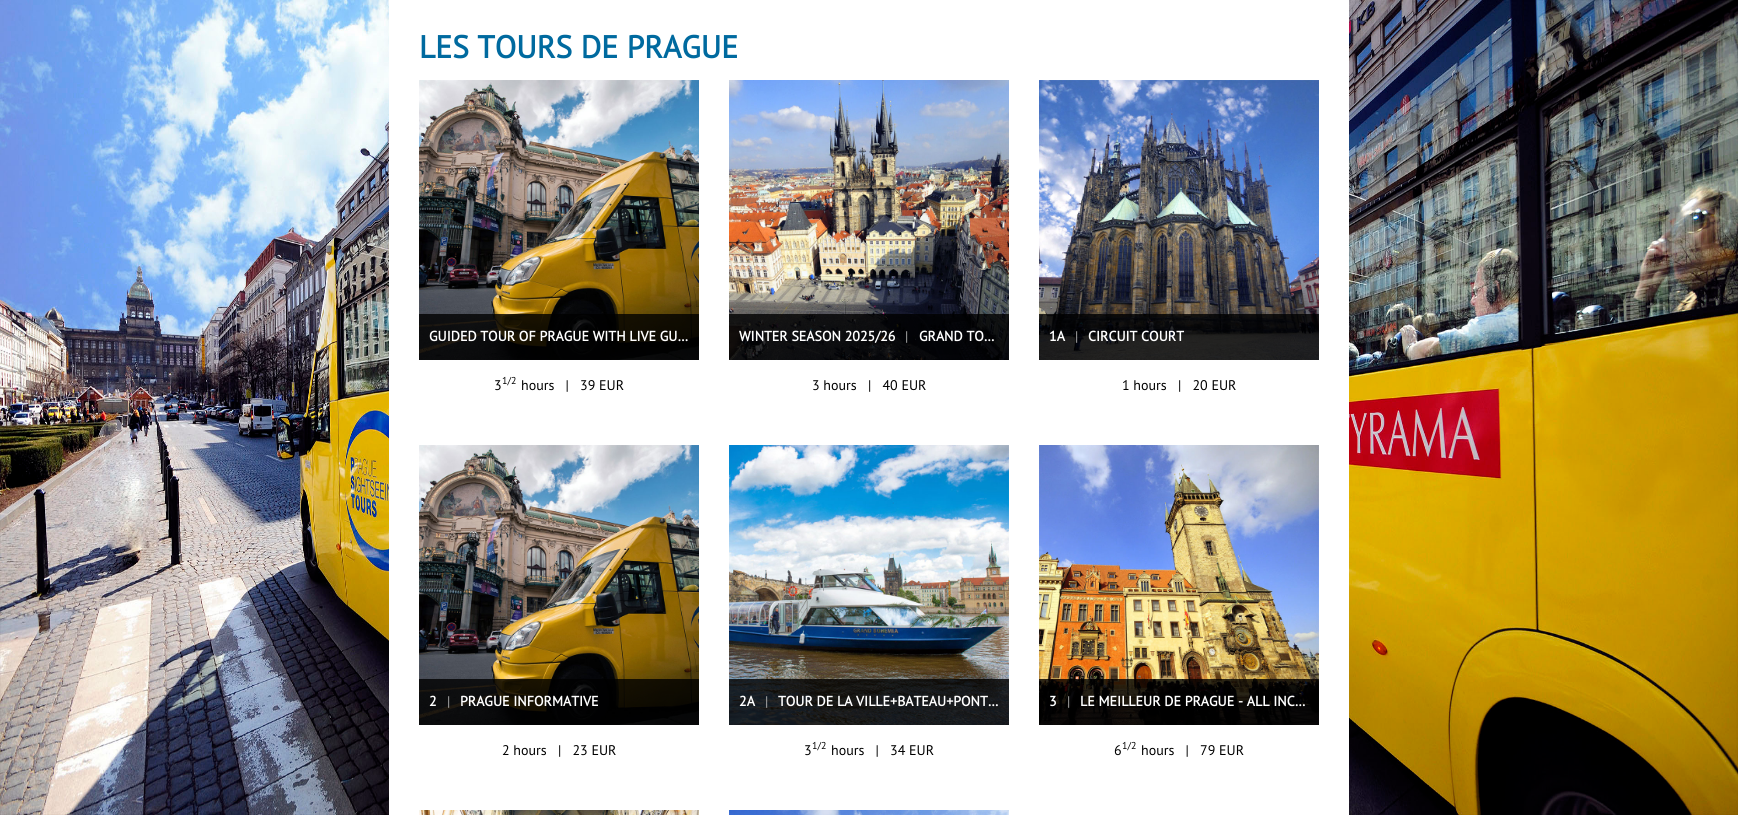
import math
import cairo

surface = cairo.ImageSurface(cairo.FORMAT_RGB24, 1738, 815)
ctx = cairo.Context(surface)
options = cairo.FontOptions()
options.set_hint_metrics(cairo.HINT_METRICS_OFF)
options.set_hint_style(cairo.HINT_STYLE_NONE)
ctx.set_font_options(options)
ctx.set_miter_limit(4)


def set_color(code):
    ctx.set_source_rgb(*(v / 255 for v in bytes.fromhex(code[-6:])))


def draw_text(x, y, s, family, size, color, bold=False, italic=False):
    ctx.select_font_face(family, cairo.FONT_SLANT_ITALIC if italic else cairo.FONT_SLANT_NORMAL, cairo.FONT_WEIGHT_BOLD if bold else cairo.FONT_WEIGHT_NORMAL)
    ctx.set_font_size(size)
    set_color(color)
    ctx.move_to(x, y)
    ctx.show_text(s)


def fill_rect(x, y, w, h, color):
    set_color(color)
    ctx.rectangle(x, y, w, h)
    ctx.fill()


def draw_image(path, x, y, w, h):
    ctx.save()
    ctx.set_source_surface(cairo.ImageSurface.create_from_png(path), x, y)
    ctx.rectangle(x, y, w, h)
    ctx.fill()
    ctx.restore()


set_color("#ffffff")
ctx.paint()
draw_image("assets/img1.png", 0, 0, 1738, 815)
fill_rect(389, 0, 960, 815, "#ffffff")
draw_text(419, 58, "LES TOURS DE PRAGUE", "PT Sans", 31.5, "#006a9f", bold=True)
draw_image("assets/img2.png", 419, 80, 280, 280)
ctx.set_source_rgba(0, 0, 0, 0.8)
ctx.rectangle(419, 314, 280, 46)
ctx.fill()
draw_text(429, 341, "GUIDED TOUR OF PRAGUE WITH LIVE GU…", "PT Sans", 14, "#ffffff", bold=True)
draw_text(494, 390, "3", "PT Sans", 14, "#000000")
draw_text(502, 384, "1/2", "PT Sans", 10, "#000000")
draw_text(521, 390, "hours   |   39 EUR", "PT Sans", 14, "#000000")
draw_image("assets/img3.png", 729, 80, 280, 280)
ctx.set_source_rgba(0, 0, 0, 0.8)
ctx.rectangle(729, 314, 280, 46)
ctx.fill()
draw_text(739, 341, "WINTER SEASON 2025/26", "PT Sans", 14, "#ffffff", bold=True)
draw_text(905, 341, "|", "PT Sans", 14, "#aaaaaa")
draw_text(919, 341, "GRAND TO…", "PT Sans", 14, "#ffffff", bold=True)
draw_text(812, 390, "3 hours   |   40 EUR", "PT Sans", 14, "#000000")
draw_image("assets/img4.png", 1039, 80, 280, 280)
ctx.set_source_rgba(0, 0, 0, 0.8)
ctx.rectangle(1039, 314, 280, 46)
ctx.fill()
draw_text(1049, 341, "1A", "PT Sans", 14, "#ffffff", bold=True)
draw_text(1075, 341, "|", "PT Sans", 14, "#aaaaaa")
draw_text(1088, 341, "CIRCUIT COURT", "PT Sans", 14, "#ffffff", bold=True)
draw_text(1122, 390, "1 hours   |   20 EUR", "PT Sans", 14, "#000000")
draw_image("assets/img5.png", 419, 445, 280, 280)
ctx.set_source_rgba(0, 0, 0, 0.8)
ctx.rectangle(419, 679, 280, 46)
ctx.fill()
draw_text(429, 706, "2", "PT Sans", 14, "#ffffff", bold=True)
draw_text(447, 706, "|", "PT Sans", 14, "#aaaaaa")
draw_text(460, 706, "PRAGUE INFORMATIVE", "PT Sans", 14, "#ffffff", bold=True)
draw_text(502, 755, "2 hours   |   23 EUR", "PT Sans", 14, "#000000")
draw_image("assets/img6.png", 729, 445, 280, 280)
ctx.set_source_rgba(0, 0, 0, 0.8)
ctx.rectangle(729, 679, 280, 46)
ctx.fill()
draw_text(739, 706, "2A", "PT Sans", 14, "#ffffff", bold=True)
draw_text(765, 706, "|", "PT Sans", 14, "#aaaaaa")
draw_text(778, 706, "TOUR DE LA VILLE+BATEAU+PONT…", "PT Sans", 14, "#ffffff", bold=True)
draw_text(804, 755, "3", "PT Sans", 14, "#000000")
draw_text(812, 749, "1/2", "PT Sans", 10, "#000000")
draw_text(831, 755, "hours   |   34 EUR", "PT Sans", 14, "#000000")
draw_image("assets/img7.png", 1039, 445, 280, 280)
ctx.set_source_rgba(0, 0, 0, 0.8)
ctx.rectangle(1039, 679, 280, 46)
ctx.fill()
draw_text(1049, 706, "3", "PT Sans", 14, "#ffffff", bold=True)
draw_text(1067, 706, "|", "PT Sans", 14, "#aaaaaa")
draw_text(1080, 706, "LE MEILLEUR DE PRAGUE - ALL INC…", "PT Sans", 14, "#ffffff", bold=True)
draw_text(1114, 755, "6", "PT Sans", 14, "#000000")
draw_text(1122, 749, "1/2", "PT Sans", 10, "#000000")
draw_text(1141, 755, "hours   |   79 EUR", "PT Sans", 14, "#000000")
draw_image("assets/img8.png", 419, 810, 280, 5)
draw_image("assets/img9.png", 729, 810, 280, 5)
surface.write_to_png("output.png")
